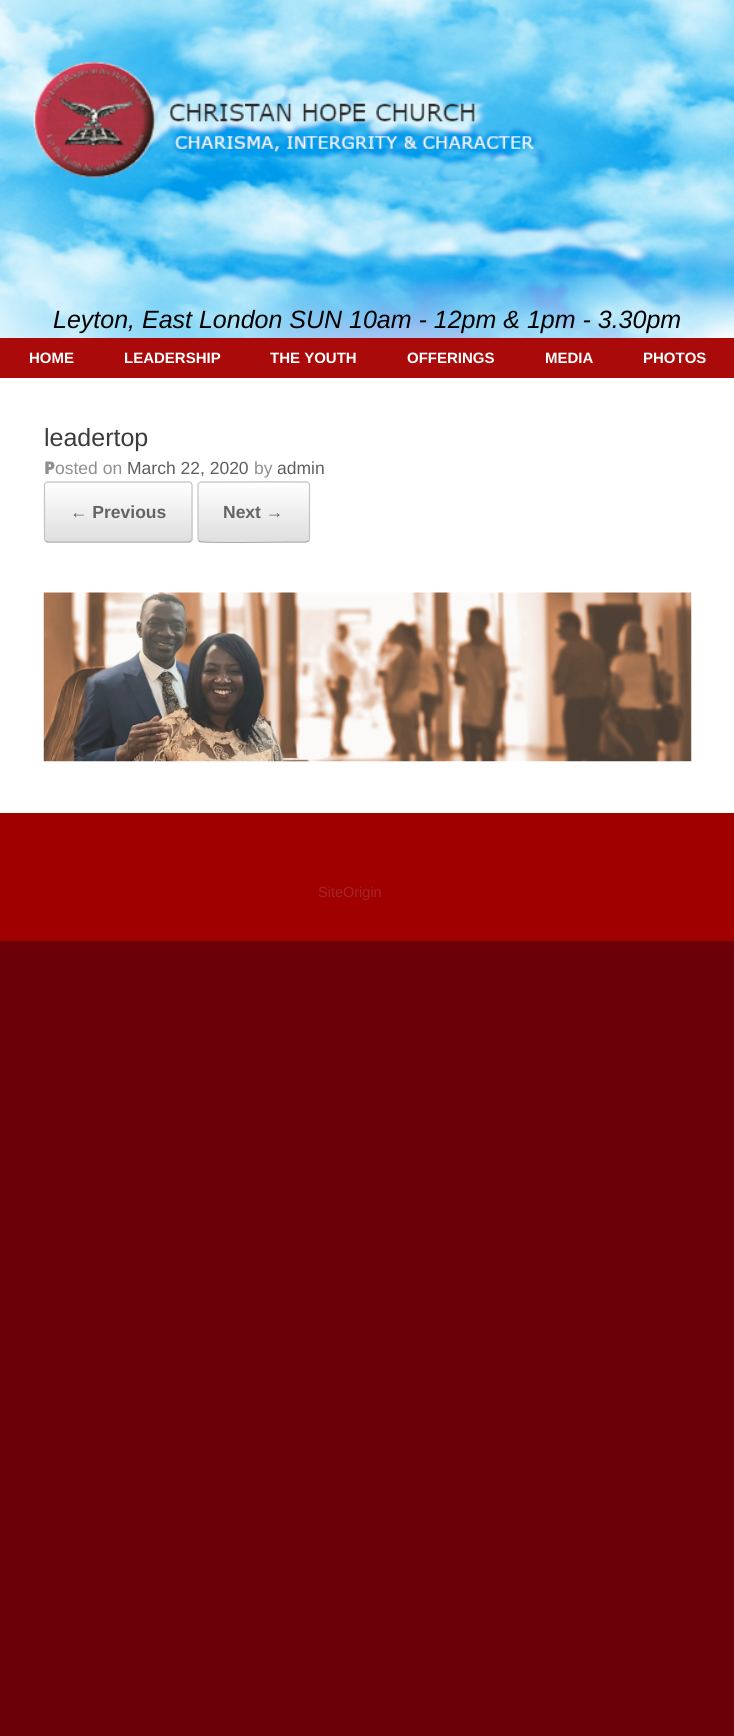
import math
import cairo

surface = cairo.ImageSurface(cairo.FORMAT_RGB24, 734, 1736)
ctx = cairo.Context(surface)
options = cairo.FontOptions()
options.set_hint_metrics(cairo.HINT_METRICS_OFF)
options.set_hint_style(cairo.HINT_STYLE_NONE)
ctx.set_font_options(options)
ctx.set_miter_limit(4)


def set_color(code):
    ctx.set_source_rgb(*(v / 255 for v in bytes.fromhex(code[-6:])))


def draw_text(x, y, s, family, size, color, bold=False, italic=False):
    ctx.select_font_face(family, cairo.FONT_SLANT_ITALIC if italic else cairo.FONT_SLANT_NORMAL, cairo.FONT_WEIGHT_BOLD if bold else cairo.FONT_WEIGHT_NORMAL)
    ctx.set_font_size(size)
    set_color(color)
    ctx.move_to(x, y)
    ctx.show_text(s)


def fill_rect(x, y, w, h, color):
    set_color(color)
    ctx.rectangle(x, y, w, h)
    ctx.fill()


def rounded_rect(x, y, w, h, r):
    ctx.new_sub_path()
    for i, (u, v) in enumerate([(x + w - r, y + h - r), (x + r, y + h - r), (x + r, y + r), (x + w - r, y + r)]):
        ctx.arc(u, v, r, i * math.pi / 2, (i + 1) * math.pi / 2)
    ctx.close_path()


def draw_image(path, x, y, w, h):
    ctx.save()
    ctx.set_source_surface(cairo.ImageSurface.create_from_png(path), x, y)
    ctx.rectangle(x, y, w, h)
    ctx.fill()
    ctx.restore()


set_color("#6b0008")
ctx.paint()
fill_rect(0, 0, 246, 338, "#ffffff")
draw_image("assets/img1.png", 0, 0, 734, 338)
draw_text(53, 328, "Leyton, East London SUN 10am - 12pm & 1pm - 3.30pm", "Liberation Sans", 25, "#000000", italic=True)
fill_rect(0, 338, 734, 40, "#aa0a0a")
draw_text(29, 363, "HOME", "Liberation Sans", 15, "#ffffff", bold=True)
draw_text(124, 363, "LEADERSHIP", "Liberation Sans", 15, "#ffffff", bold=True)
draw_text(270, 363, "THE YOUTH", "Liberation Sans", 15, "#ffffff", bold=True)
draw_text(407, 363, "OFFERINGS", "Liberation Sans", 15, "#ffffff", bold=True)
draw_text(545, 363, "MEDIA", "Liberation Sans", 15, "#ffffff", bold=True)
draw_text(643, 363, "PHOTOS", "Liberation Sans", 15, "#ffffff", bold=True)
fill_rect(0, 378, 734, 435, "#ffffff")
draw_text(44, 446, "leadertop", "Liberation Sans", 25, "#3b3b3b")
draw_text(44, 474, "P", "Noto Sans Black", 17.5, "#8f8f8f")
draw_text(55, 474, "osted on", "Liberation Sans", 17.5, "#8f8f8f")
draw_text(127, 474, "March 22, 2020", "Liberation Sans", 17.5, "#5e5e5e")
draw_text(254, 474, "by", "Liberation Sans", 17.5, "#8f8f8f")
draw_text(277, 474, "admin", "Liberation Sans", 17.5, "#5e5e5e")
ctx.save()
rounded_rect(44, 481, 149, 62, 4)
ctx.clip()
gradient = cairo.LinearGradient(45, 483, 45, 424)
gradient.add_color_stop_rgba(0, 0.875, 0.875, 0.875, 1)
gradient.add_color_stop_rgba(1, 1, 1, 1, 1)
ctx.set_source(gradient)
ctx.rectangle(44, 481, 149, 2)
ctx.fill()
gradient = cairo.LinearGradient(45, 541, 45, 483)
gradient.add_color_stop_rgba(0, 0.875, 0.875, 0.875, 1)
gradient.add_color_stop_rgba(1, 1, 1, 1, 1)
ctx.set_source(gradient)
ctx.rectangle(44, 483, 149, 58)
ctx.fill()
ctx.restore()
ctx.new_path()
ctx.move_to(45.5, 483)
ctx.line_to(47.5, 482)
ctx.line_to(189, 482)
ctx.line_to(191, 483)
set_color("#d2d2d2")
ctx.set_line_width(1.2)
ctx.stroke()
ctx.new_path()
ctx.move_to(191, 483)
ctx.line_to(192, 484.5)
ctx.line_to(192, 539)
ctx.line_to(191, 541)
set_color("#c3c3c3")
ctx.stroke()
ctx.new_path()
ctx.move_to(191, 541)
ctx.line_to(189, 542)
ctx.line_to(47.5, 542)
ctx.line_to(45.5, 541)
set_color("#9f9f9f")
ctx.stroke()
ctx.new_path()
ctx.move_to(45.5, 541)
ctx.line_to(44.5, 539)
ctx.line_to(44.5, 484.5)
ctx.line_to(45.5, 483)
set_color("#c3c3c3")
ctx.stroke()
draw_text(70, 518, "← Previous", "Liberation Sans", 17.5, "#646464", bold=True)
ctx.save()
rounded_rect(198, 481, 112, 62, 4)
ctx.clip()
gradient = cairo.LinearGradient(199, 483, 199, 424)
gradient.add_color_stop_rgba(0, 0.875, 0.875, 0.875, 1)
gradient.add_color_stop_rgba(1, 1, 1, 1, 1)
ctx.set_source(gradient)
ctx.rectangle(198, 481, 112, 2)
ctx.fill()
gradient = cairo.LinearGradient(199, 541, 199, 483)
gradient.add_color_stop_rgba(0, 0.875, 0.875, 0.875, 1)
gradient.add_color_stop_rgba(1, 1, 1, 1, 1)
ctx.set_source(gradient)
ctx.rectangle(198, 483, 112, 58)
ctx.fill()
ctx.restore()
ctx.new_path()
ctx.move_to(199, 483)
ctx.line_to(201, 482)
ctx.line_to(219, 482)
ctx.curve_to(228, 482, 305.5, 481, 308, 482.5)
ctx.line_to(308.5, 483)
set_color("#d2d2d2")
ctx.stroke()
ctx.new_path()
ctx.move_to(308.5, 483)
ctx.line_to(309.5, 484.5)
ctx.line_to(309.5, 539)
ctx.line_to(308.5, 541)
set_color("#c3c3c3")
ctx.stroke()
ctx.new_path()
ctx.move_to(308.5, 541)
ctx.line_to(306, 542)
ctx.line_to(289, 542)
ctx.curve_to(279.5, 542, 202, 543, 199.5, 541.5)
ctx.line_to(199, 541)
set_color("#9f9f9f")
ctx.stroke()
ctx.new_path()
ctx.move_to(199, 541)
ctx.line_to(198, 539)
ctx.line_to(198, 484.5)
ctx.line_to(199, 483)
set_color("#c3c3c3")
ctx.stroke()
draw_text(223, 518, "Next →", "Liberation Sans", 17.5, "#646464", bold=True)
draw_image("assets/img2.png", 43, 592, 649, 170)
fill_rect(0, 813, 734, 128, "#a00000")
draw_text(318, 897, "SiteOrigin", "Liberation Sans", 14.5, "#a52626")
surface.write_to_png("output.png")
